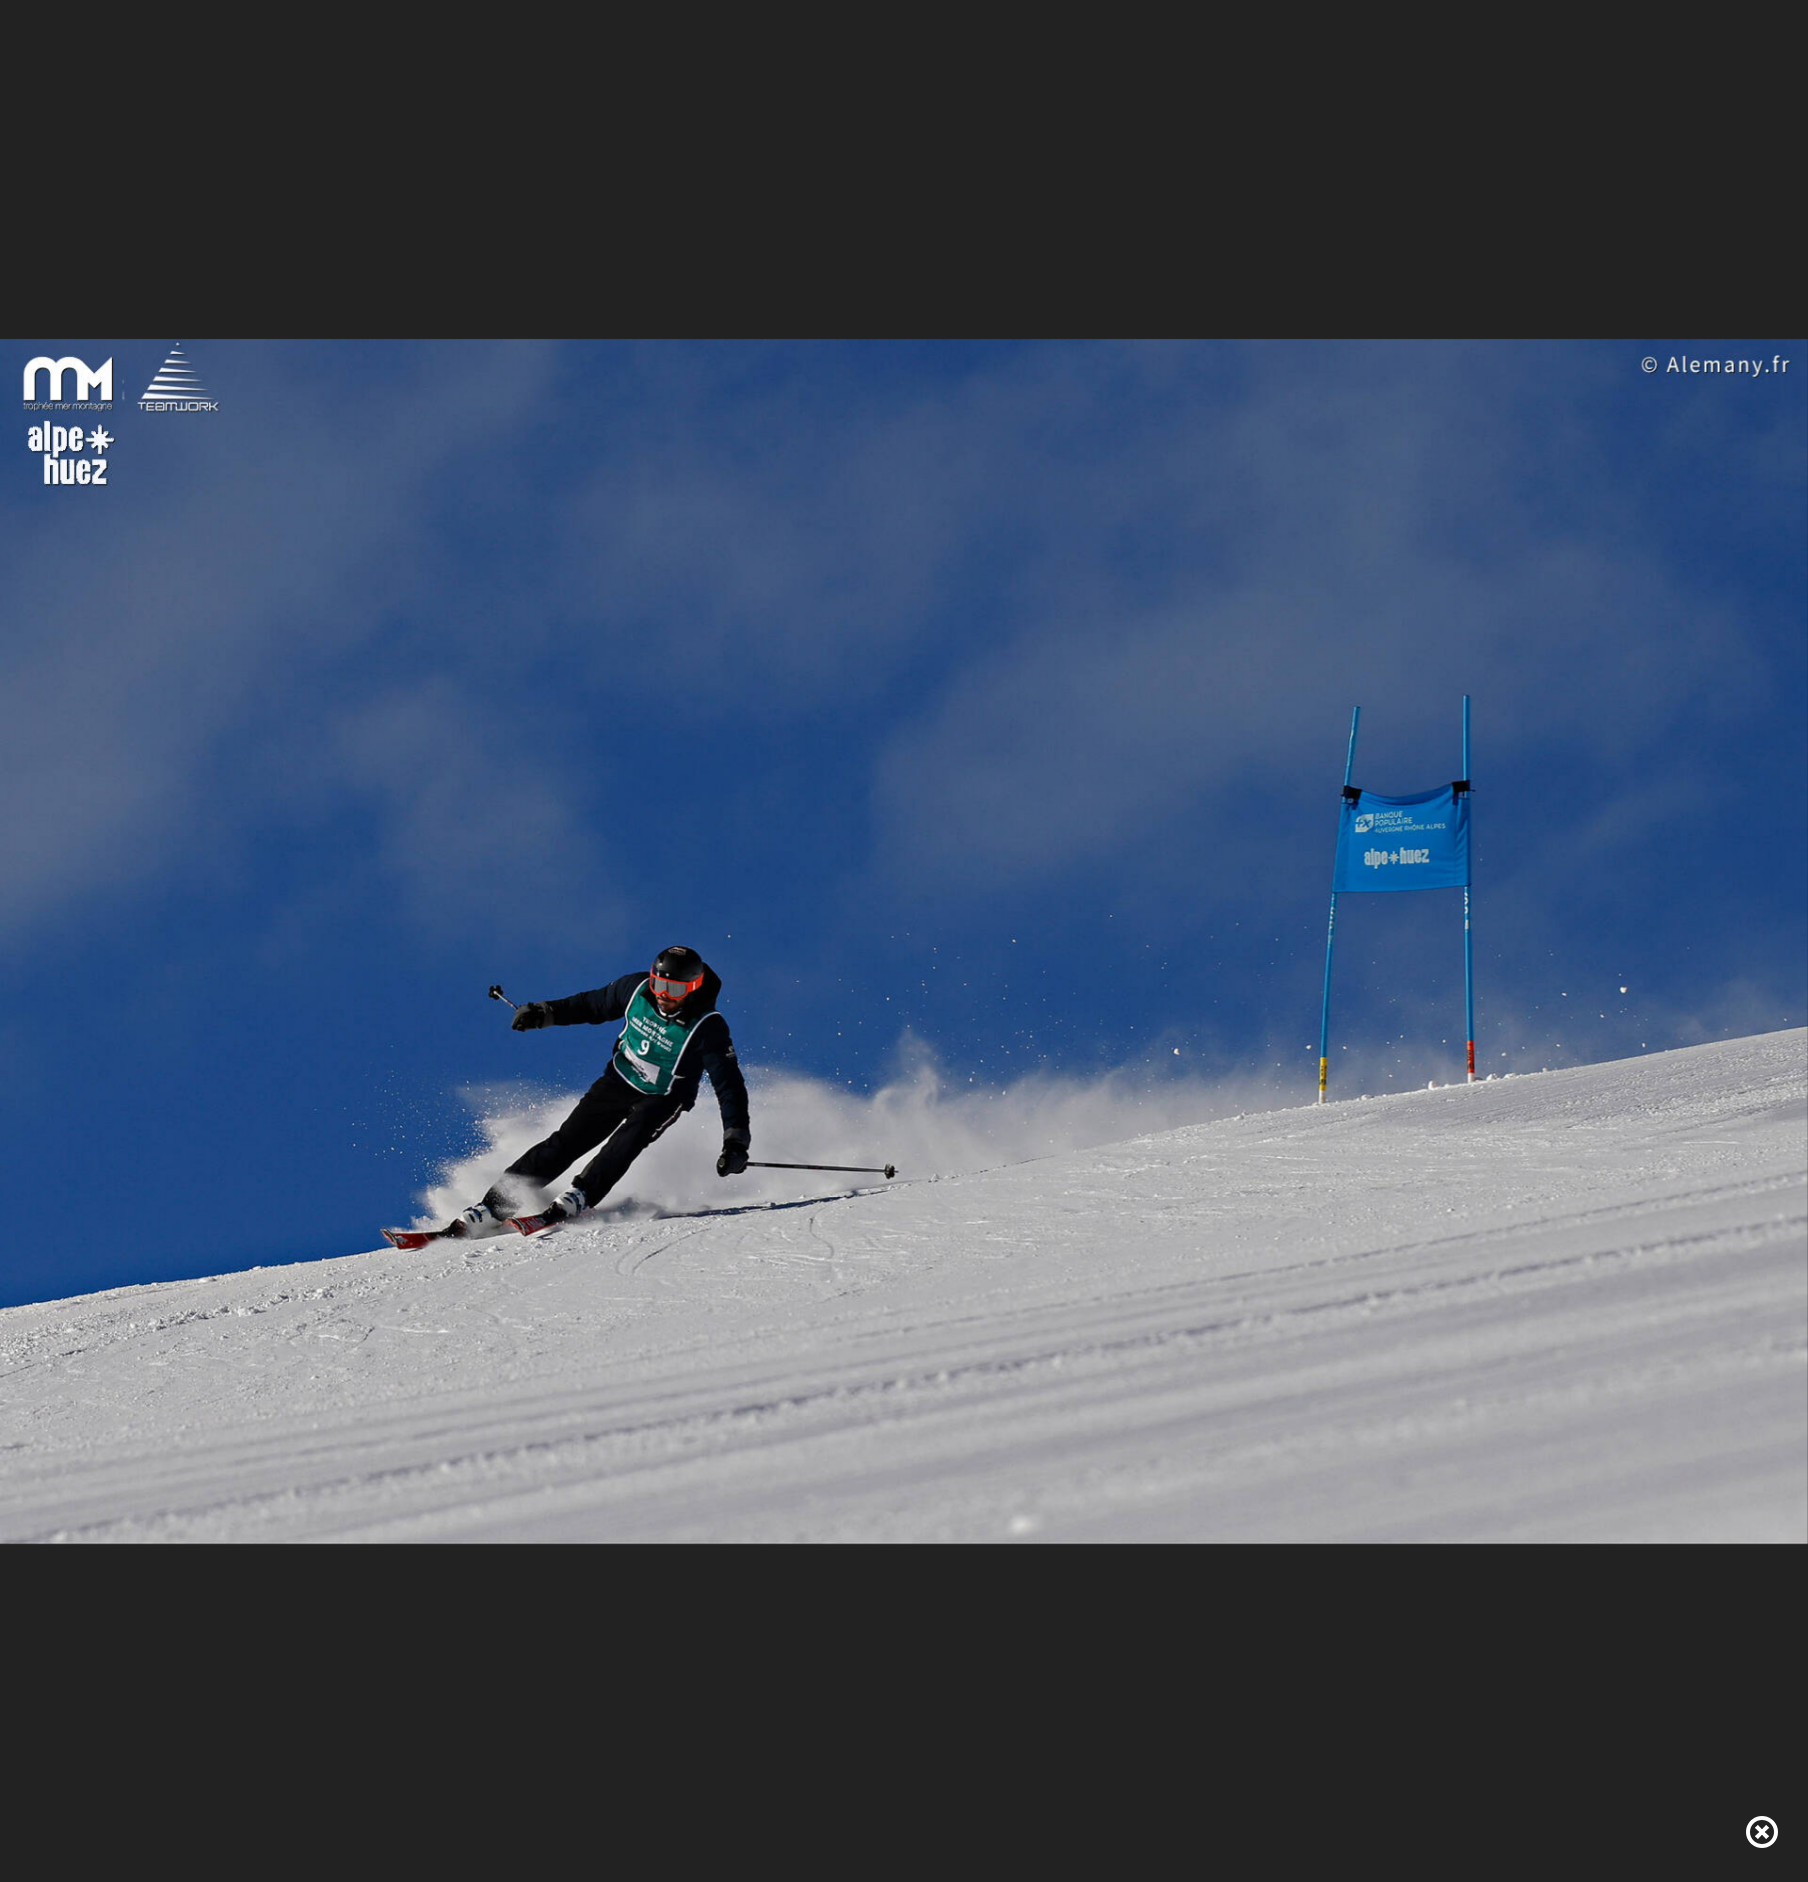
import math
import cairo

surface = cairo.ImageSurface(cairo.FORMAT_RGB24, 1808, 1882)
ctx = cairo.Context(surface)
options = cairo.FontOptions()
options.set_hint_metrics(cairo.HINT_METRICS_OFF)
options.set_hint_style(cairo.HINT_STYLE_NONE)
ctx.set_font_options(options)
ctx.set_miter_limit(4)


def set_color(code):
    ctx.set_source_rgb(*(v / 255 for v in bytes.fromhex(code[-6:])))


def draw_image(path, x, y, w, h):
    ctx.save()
    ctx.set_source_surface(cairo.ImageSurface.create_from_png(path), x, y)
    ctx.rectangle(x, y, w, h)
    ctx.fill()
    ctx.restore()


set_color("#222222")
ctx.paint()
draw_image("assets/img1.png", 0, 338, 1808, 1207)
draw_image("assets/img2.png", 1746, 1816, 32, 32)
surface.write_to_png("output.png")
